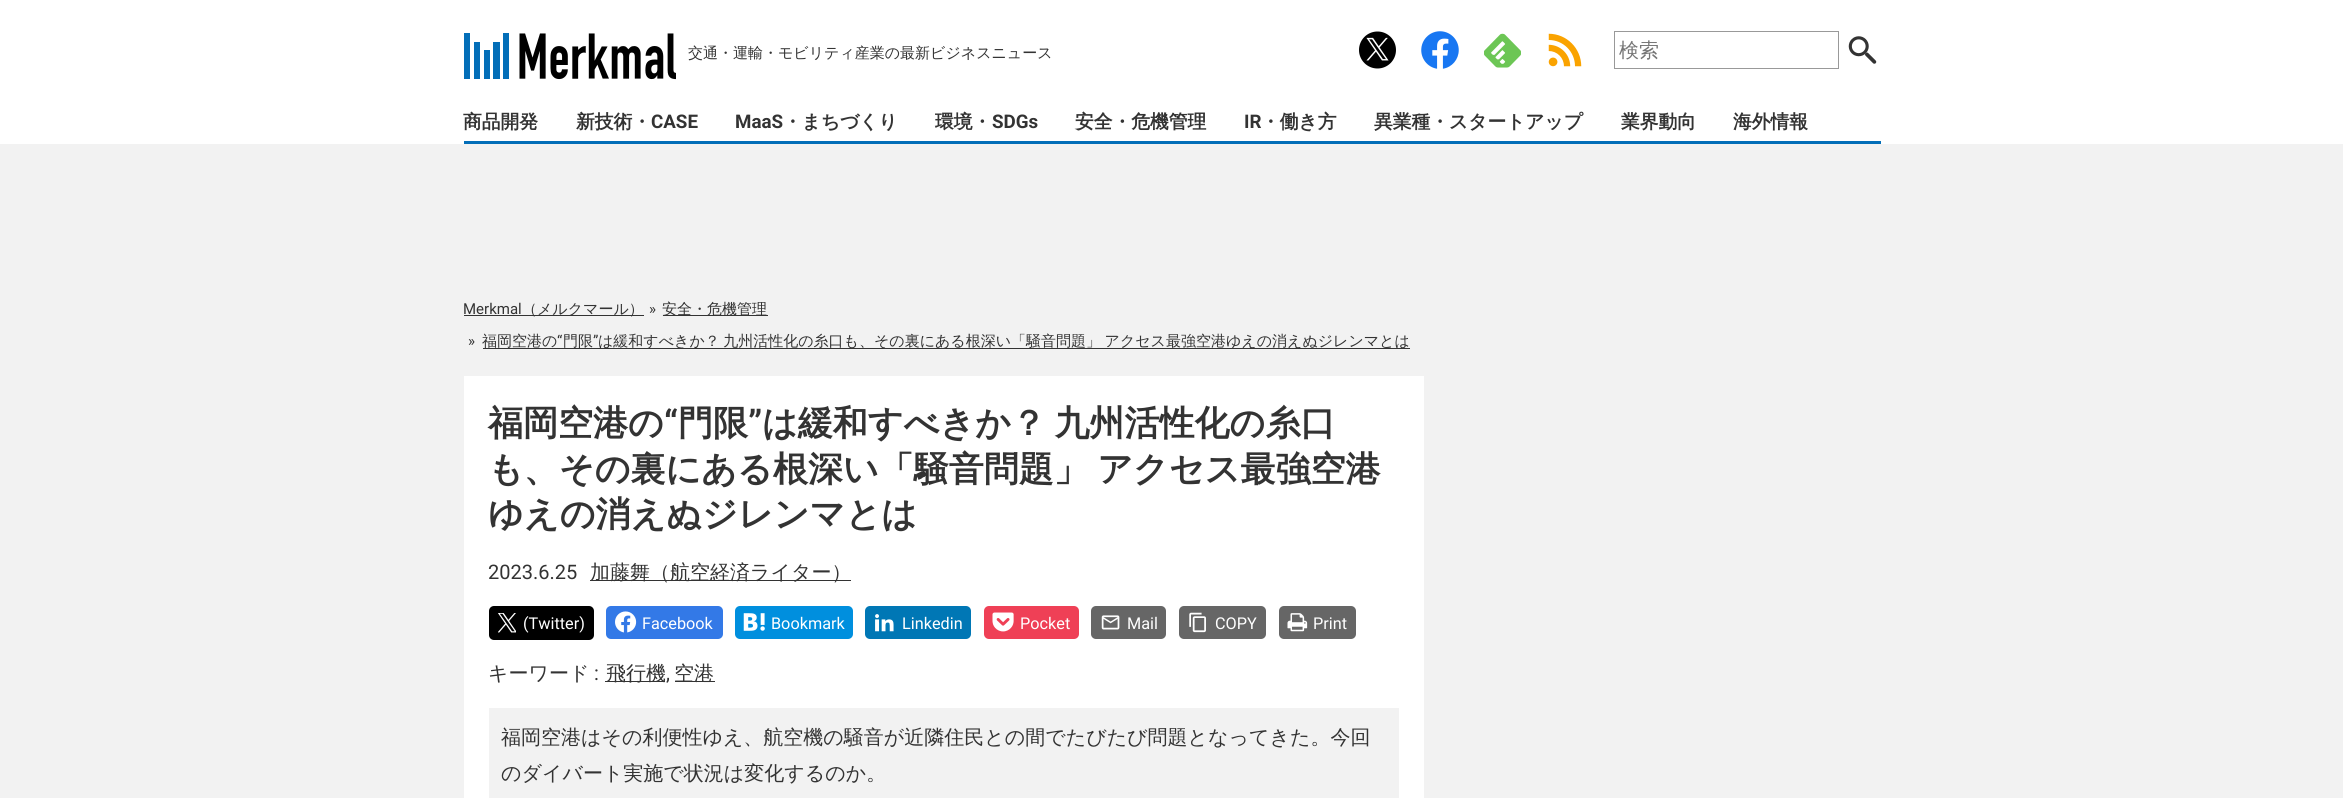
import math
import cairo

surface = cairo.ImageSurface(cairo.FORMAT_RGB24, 2343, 798)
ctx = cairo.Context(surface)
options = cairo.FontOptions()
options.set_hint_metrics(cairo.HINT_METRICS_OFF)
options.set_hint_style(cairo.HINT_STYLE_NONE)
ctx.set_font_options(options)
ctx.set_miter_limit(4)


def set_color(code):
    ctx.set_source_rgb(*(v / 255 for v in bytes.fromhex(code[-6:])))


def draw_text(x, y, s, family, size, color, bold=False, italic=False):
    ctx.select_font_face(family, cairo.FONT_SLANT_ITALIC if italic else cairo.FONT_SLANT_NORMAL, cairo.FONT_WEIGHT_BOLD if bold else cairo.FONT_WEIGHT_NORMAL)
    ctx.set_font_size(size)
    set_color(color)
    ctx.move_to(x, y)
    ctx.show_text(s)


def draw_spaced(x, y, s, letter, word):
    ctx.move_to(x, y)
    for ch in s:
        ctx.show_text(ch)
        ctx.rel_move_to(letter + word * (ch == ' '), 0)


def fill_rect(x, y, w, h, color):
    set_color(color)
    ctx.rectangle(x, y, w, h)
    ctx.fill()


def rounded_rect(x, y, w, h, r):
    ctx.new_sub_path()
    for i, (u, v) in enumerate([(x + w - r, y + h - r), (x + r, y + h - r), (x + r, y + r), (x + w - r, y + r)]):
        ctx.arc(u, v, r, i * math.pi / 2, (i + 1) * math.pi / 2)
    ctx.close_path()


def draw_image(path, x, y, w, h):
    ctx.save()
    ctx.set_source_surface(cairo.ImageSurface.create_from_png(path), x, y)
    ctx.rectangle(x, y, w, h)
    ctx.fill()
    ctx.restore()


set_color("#f2f2f2")
ctx.paint()
fill_rect(0, 0, 2343, 144, "#ffffff")
draw_image("assets/img1.png", 464, 33, 212, 47)
draw_text(688, 58, "交通・運輸・モビリティ産業の最新ビジネスニュース", "WenQuanYi Zen Hei Medium", 15, "#333333")
draw_image("assets/img2.png", 1359, 31, 37, 38)
draw_image("assets/img3.png", 1421, 31, 38, 38)
draw_image("assets/img4.png", 1484, 33, 37, 35)
draw_image("assets/img5.png", 1548, 33, 34, 34)
ctx.rectangle(1614.5, 31.5, 224, 37)
set_color("#999999")
ctx.set_line_width(1)
ctx.stroke()
draw_text(1619, 57, "検索", "WenQuanYi Zen Hei Medium", 20, "#757575")
draw_image("assets/img6.png", 1848, 36, 29, 28)
draw_text(463, 128, "商品開発", "WenQuanYi Zen Hei", 18.75, "#333333", bold=True)
draw_text(576, 128, "新技術・", "WenQuanYi Zen Hei", 18.75, "#333333", bold=True)
draw_text(651, 128, "CASE", "Roboto", 18.75, "#333333", bold=True)
draw_text(735, 128, "MaaS", "Roboto", 18.75, "#333333", bold=True)
draw_text(783, 128, "・まちづくり", "WenQuanYi Zen Hei", 18.75, "#333333", bold=True)
draw_text(935, 128, "環境・", "WenQuanYi Zen Hei", 18.75, "#333333", bold=True)
draw_text(992, 128, "SDGs", "Roboto", 18.75, "#333333", bold=True)
draw_text(1075, 128, "安全・危機管理", "WenQuanYi Zen Hei", 18.75, "#333333", bold=True)
draw_text(1244, 128, "IR", "Roboto", 18.75, "#333333", bold=True)
draw_text(1261, 128, "・働き方", "WenQuanYi Zen Hei", 18.75, "#333333", bold=True)
draw_text(1374, 128, "異業種・スタートアップ", "WenQuanYi Zen Hei", 18.75, "#333333", bold=True)
draw_text(1621, 128, "業界動向", "WenQuanYi Zen Hei", 18.75, "#333333", bold=True)
draw_text(1733, 128, "海外情報", "WenQuanYi Zen Hei", 18.75, "#333333", bold=True)
fill_rect(464, 141, 1417, 3, "#036eb8")
draw_text(463, 314, "Merkmal", "Roboto", 15, "#333333")
fill_rect(464, 315, 180, 1, "#333333")
draw_text(522, 314, "（メルクマール）", "WenQuanYi Zen Hei Medium", 15, "#333333")
draw_text(649, 314, "»", "Roboto", 15, "#333333")
fill_rect(663, 315, 105, 1, "#333333")
draw_text(662, 314, "安全・危機管理", "WenQuanYi Zen Hei Medium", 15, "#333333")
draw_text(482, 346, "福岡空港の", "WenQuanYi Zen Hei Medium", 15, "#333333")
draw_text(557, 346, "“", "Roboto", 15, "#333333")
draw_text(563, 346, "門限", "WenQuanYi Zen Hei Medium", 15, "#333333")
fill_rect(483, 348, 927, 1, "#333333")
draw_text(593, 346, "”", "Roboto", 15, "#333333")
ctx.select_font_face("WenQuanYi Zen Hei Medium")
draw_spaced(598, 346, "は緩和すべきか？ 九州活性化の糸口も、その裏にある根深い「騒音問題」 アクセス最強空港ゆえの消えぬジレンマとは", 0, -1)
draw_text(468, 346, "»", "Roboto", 15, "#333333")
fill_rect(464, 376, 960, 422, "#ffffff")
draw_text(488, 435, "福岡空港の", "WenQuanYi Zen Hei", 35, "#333333", bold=True)
draw_text(664, 435, "“", "Roboto", 35, "#333333", bold=True)
draw_text(678, 435, "門限", "WenQuanYi Zen Hei", 35, "#333333", bold=True)
draw_text(748, 435, "”", "Roboto", 35, "#333333", bold=True)
ctx.select_font_face("WenQuanYi Zen Hei", cairo.FONT_SLANT_NORMAL, cairo.FONT_WEIGHT_BOLD)
draw_spaced(762, 435, "は緩和すべきか？ 九州活性化の糸口", 0, -2)
draw_spaced(488, 481, "も、その裏にある根深い「騒音問題」 アクセス最強空港", 0, -2)
draw_text(488, 526, "ゆえの消えぬジレンマとは", "WenQuanYi Zen Hei", 35, "#333333", bold=True)
draw_text(488, 579, "2023.6.25", "Roboto", 20, "#333333")
fill_rect(590, 580, 261, 1, "#333333")
draw_text(590, 579, "加藤舞（航空経済ライター）", "WenQuanYi Zen Hei Medium", 20, "#333333")
set_color("#000000")
rounded_rect(489, 606, 105, 34, 5)
ctx.fill()
draw_image("assets/img7.png", 498, 613, 18, 20)
draw_text(523, 629, "(Twitter)", "Roboto", 16.25, "#ffffff")
set_color("#3379e7")
rounded_rect(606, 606, 117, 33, 5)
ctx.fill()
draw_image("assets/img8.png", 615, 611, 22, 22)
draw_text(642, 629, "Facebook", "Roboto", 16.25, "#ffffff")
set_color("#008fde")
rounded_rect(735, 606, 118, 33, 5)
ctx.fill()
draw_image("assets/img9.png", 743, 613, 22, 18)
draw_text(771, 629, "Bookmark", "Roboto", 16.25, "#ffffff")
set_color("#0077b5")
rounded_rect(865, 606, 106, 33, 5)
ctx.fill()
draw_image("assets/img10.png", 875, 614, 19, 18)
draw_text(902, 629, "Linkedin", "Roboto", 16.25, "#ffffff")
set_color("#ef4056")
rounded_rect(984, 606, 95, 33, 5)
ctx.fill()
draw_image("assets/img11.png", 992, 612, 22, 20)
draw_text(1020, 629, "Pocket", "Roboto", 16.25, "#ffffff")
set_color("#666666")
rounded_rect(1091, 606, 75, 33, 5)
ctx.fill()
draw_image("assets/img12.png", 1101, 615, 19, 15)
draw_text(1127, 629, "Mail", "Roboto", 16.25, "#ffffff")
set_color("#666666")
rounded_rect(1179, 606, 87, 33, 5)
ctx.fill()
draw_image("assets/img13.png", 1189, 612, 17, 21)
draw_text(1215, 629, "COPY", "Roboto", 16.25, "#ffffff")
set_color("#666666")
rounded_rect(1279, 606, 77, 33, 5)
ctx.fill()
draw_image("assets/img14.png", 1287, 613, 21, 19)
draw_text(1313, 629, "Print", "Roboto", 16.25, "#ffffff")
draw_text(488, 680, "キーワード", "WenQuanYi Zen Hei Medium", 20, "#333333")
draw_text(594, 680, ":", "Roboto", 20, "#333333")
fill_rect(605, 681, 60, 1, "#333333")
draw_text(606, 680, "飛行機", "WenQuanYi Zen Hei Medium", 20, "#333333")
draw_text(666, 680, ",", "Roboto", 20, "#333333")
fill_rect(675, 681, 40, 1, "#333333")
draw_text(674, 680, "空港", "WenQuanYi Zen Hei Medium", 20, "#333333")
fill_rect(489, 708, 910, 90, "#f2f2f2")
draw_text(501, 744, "福岡空港はその利便性ゆえ、航空機の騒音が近隣住民との間でたびたび問題となってきた。今回", "WenQuanYi Zen Hei Medium", 20, "#333333")
draw_text(501, 780, "のダイバート実施で状況は変化するのか。", "WenQuanYi Zen Hei Medium", 20, "#333333")
surface.write_to_png("output.png")
